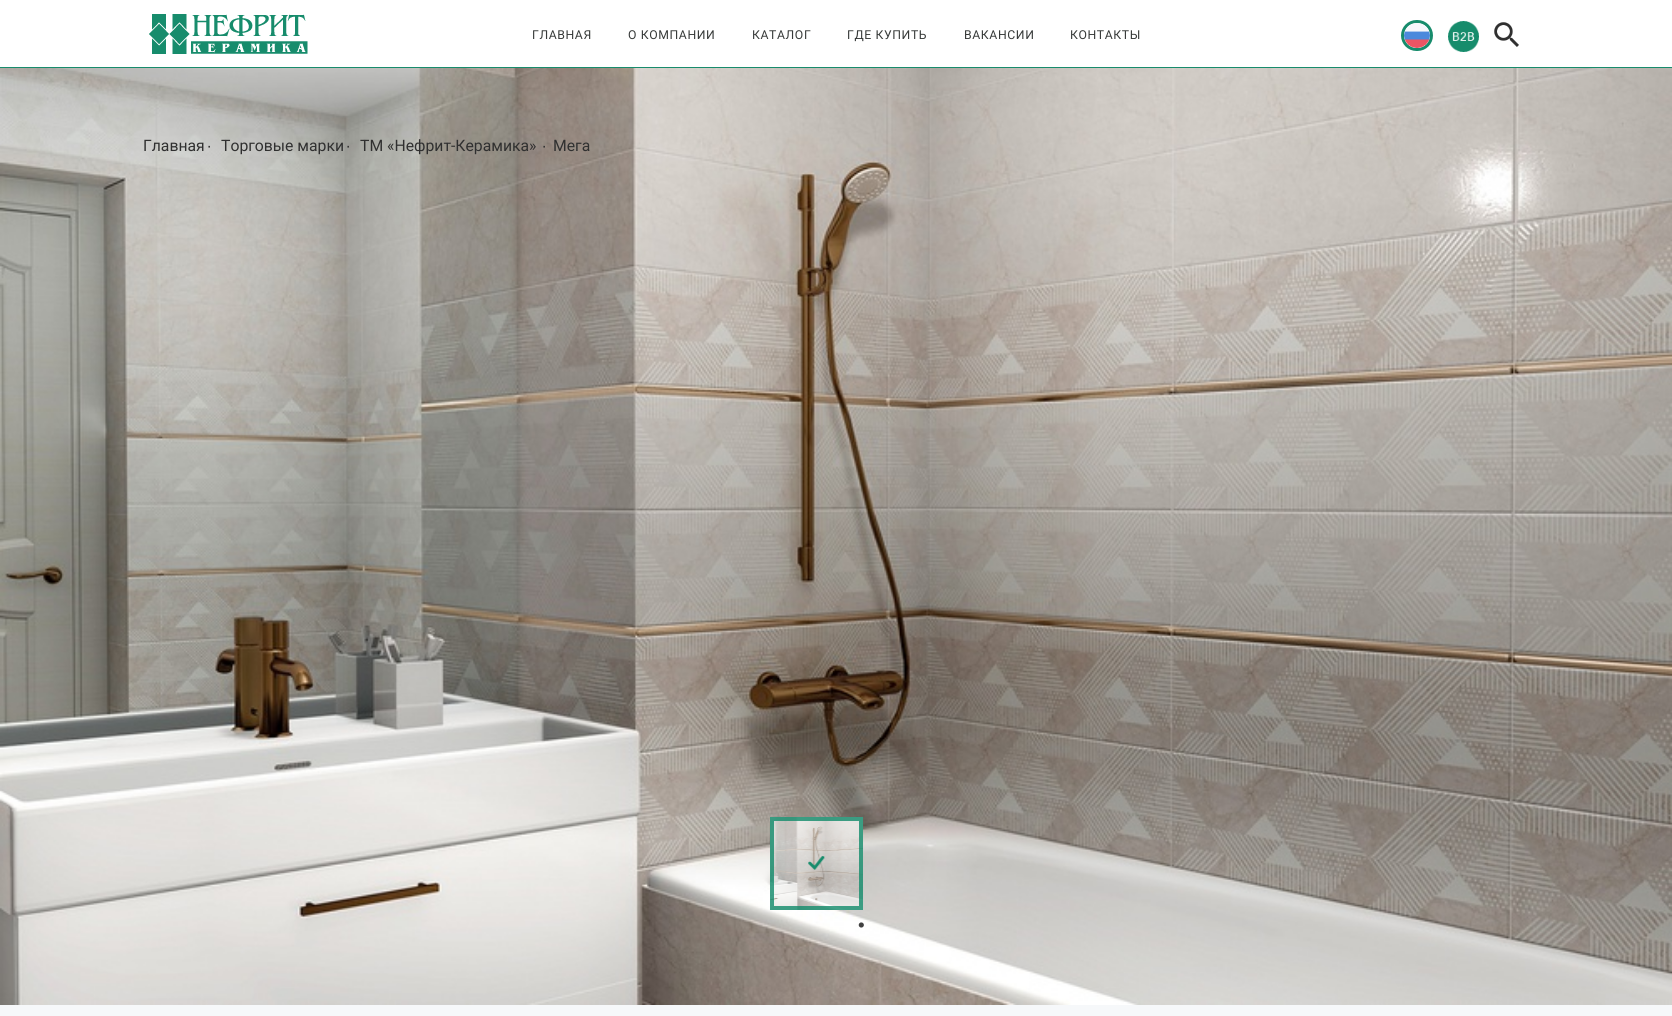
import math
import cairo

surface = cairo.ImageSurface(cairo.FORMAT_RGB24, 1672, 1016)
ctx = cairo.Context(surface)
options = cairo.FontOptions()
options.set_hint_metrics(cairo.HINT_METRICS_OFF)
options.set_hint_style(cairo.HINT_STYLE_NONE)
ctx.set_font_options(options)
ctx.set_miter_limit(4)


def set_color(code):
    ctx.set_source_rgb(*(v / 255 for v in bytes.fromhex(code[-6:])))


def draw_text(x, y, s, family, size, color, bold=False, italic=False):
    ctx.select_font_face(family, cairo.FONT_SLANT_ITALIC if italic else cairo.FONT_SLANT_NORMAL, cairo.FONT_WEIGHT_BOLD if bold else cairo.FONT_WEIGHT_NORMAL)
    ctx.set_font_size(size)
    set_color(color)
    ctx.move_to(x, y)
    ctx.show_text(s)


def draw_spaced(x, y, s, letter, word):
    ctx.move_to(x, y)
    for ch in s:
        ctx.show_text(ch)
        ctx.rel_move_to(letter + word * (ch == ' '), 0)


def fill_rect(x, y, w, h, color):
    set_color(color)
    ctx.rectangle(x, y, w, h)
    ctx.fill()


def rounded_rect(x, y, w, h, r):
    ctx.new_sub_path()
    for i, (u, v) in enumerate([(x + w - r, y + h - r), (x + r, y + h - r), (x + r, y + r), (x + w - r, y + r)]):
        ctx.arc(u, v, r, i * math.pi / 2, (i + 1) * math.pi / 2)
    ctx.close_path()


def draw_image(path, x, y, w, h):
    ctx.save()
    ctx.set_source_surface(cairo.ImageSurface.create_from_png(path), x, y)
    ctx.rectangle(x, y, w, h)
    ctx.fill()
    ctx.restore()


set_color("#ffffff")
ctx.paint()
fill_rect(0, 67, 1672, 1, "#178c6c")
draw_image("assets/img1.png", 149, 14, 159, 40)
ctx.select_font_face("Roboto")
ctx.set_font_size(12.25)
set_color("#373a39")
draw_spaced(532, 39, "ГЛАВНАЯ", 0.6, 0)
draw_spaced(628, 39, "О КОМПАНИИ", 0.6, 0)
draw_spaced(752, 39, "КАТАЛОГ", 0.6, 0)
draw_spaced(847, 39, "ГДЕ КУПИТЬ", 0.6, 0)
draw_spaced(964, 39, "ВАКАНСИИ", 0.6, 0)
draw_spaced(1070, 39, "КОНТАКТЫ", 0.6, 0)
rounded_rect(1402.5, 21.5, 29, 28, 14)
set_color("#178c6c")
ctx.set_line_width(3)
ctx.stroke()
draw_image("assets/img2.png", 1404, 23, 26, 25)
draw_image("assets/img3.png", 1448, 21, 31, 31)
draw_image("assets/img4.png", 1494, 22, 25, 25)
draw_image("assets/img5.png", 0, 68, 1672, 937)
draw_text(143, 151, "Главная", "Roboto", 15.75, "#303030")
draw_text(207, 151, "∙", "Liberation Sans", 15.75, "#303030")
draw_text(221, 151, "Торговые марки", "Roboto", 15.75, "#303030")
draw_text(346, 151, "∙", "Liberation Sans", 15.75, "#303030")
draw_text(360, 151, "ТМ «Нефрит-Керамика»", "Roboto", 15.75, "#303030")
draw_text(542, 151, "∙", "Liberation Sans", 15.75, "#303030")
draw_text(553, 151, "Мега", "Roboto", 15.75, "#303030")
draw_image("assets/img6.png", 770, 817, 93, 93)
ctx.set_source_rgba(1, 1, 1, 0.5)
ctx.rectangle(770, 817, 93, 93)
ctx.fill()
draw_image("assets/img7.png", 808, 856, 17, 14)
ctx.rectangle(772, 819, 89, 89)
ctx.set_source_rgba(0.09, 0.549, 0.424, 0.82)
ctx.set_line_width(4)
ctx.stroke()
draw_image("assets/img8.png", 858, 922, 6, 6)
fill_rect(0, 1005, 1672, 11, "#f6f8fa")
surface.write_to_png("output.png")
